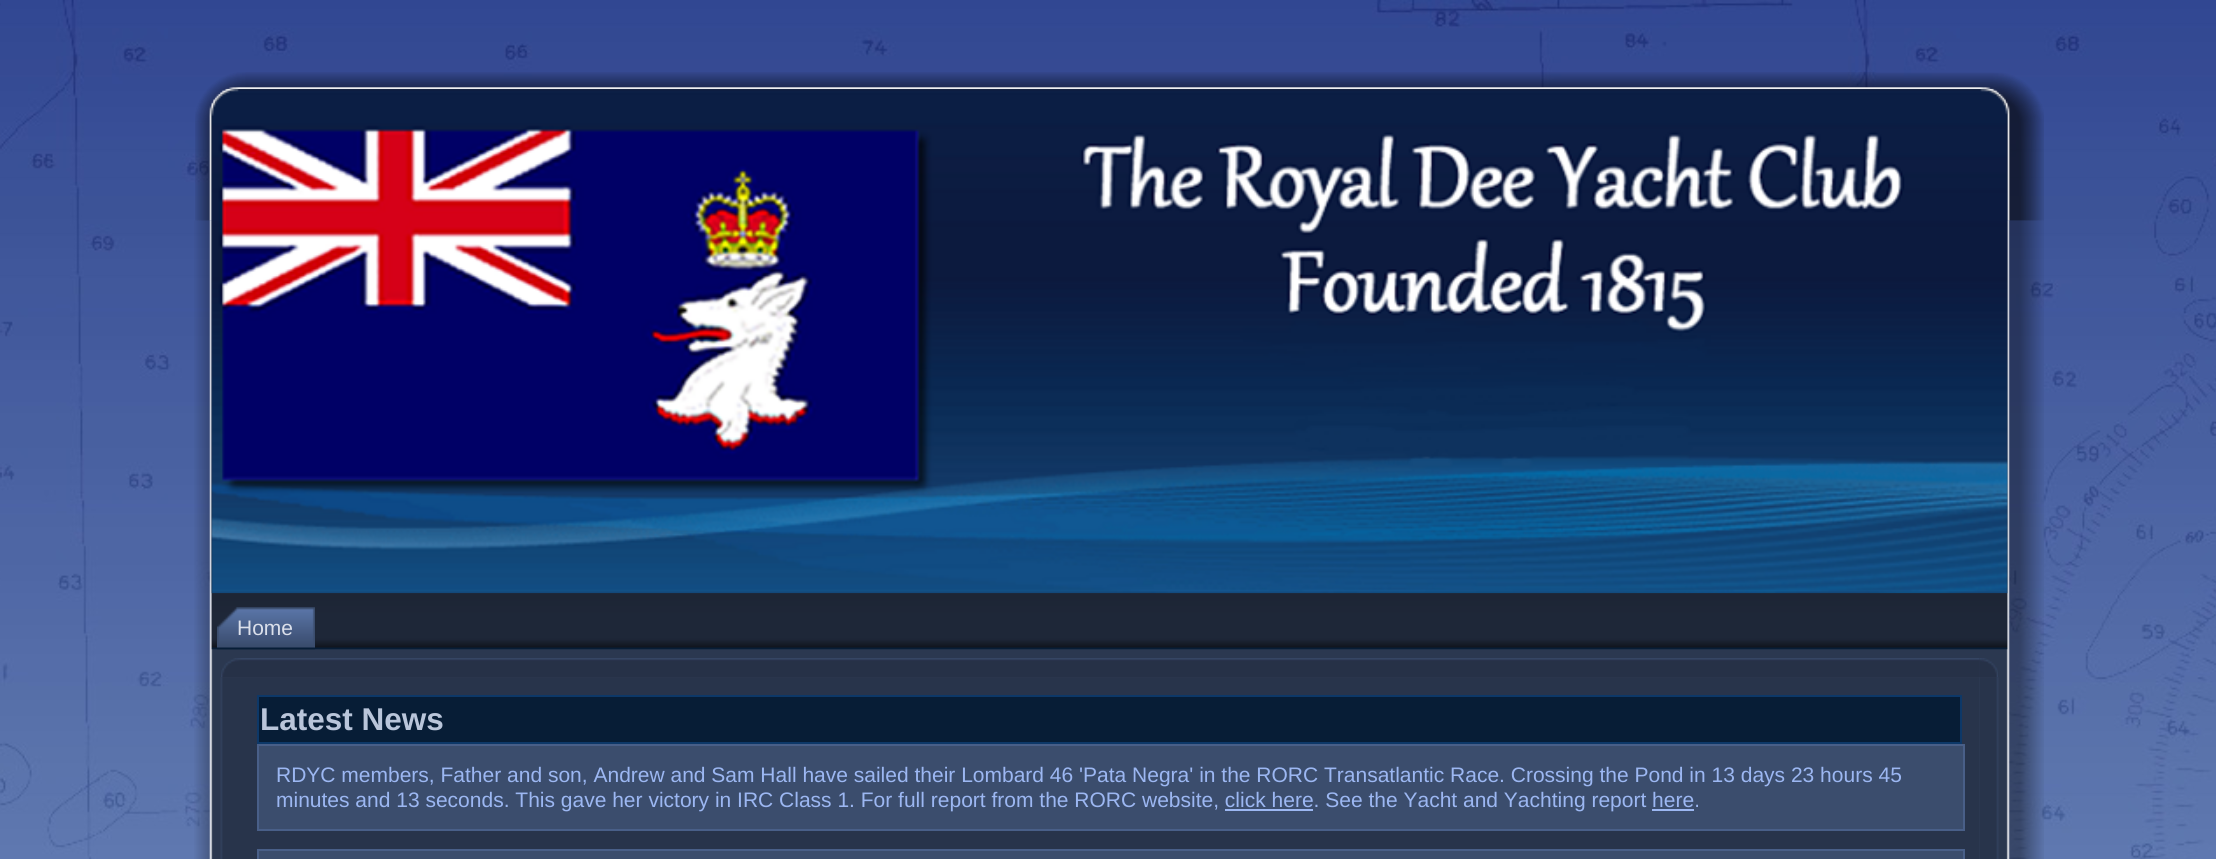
import math
import cairo

surface = cairo.ImageSurface(cairo.FORMAT_RGB24, 2216, 859)
ctx = cairo.Context(surface)
options = cairo.FontOptions()
options.set_hint_metrics(cairo.HINT_METRICS_OFF)
options.set_hint_style(cairo.HINT_STYLE_NONE)
ctx.set_font_options(options)
ctx.set_miter_limit(4)


def set_color(code):
    ctx.set_source_rgb(*(v / 255 for v in bytes.fromhex(code[-6:])))


def draw_text(x, y, s, family, size, color, bold=False, italic=False):
    ctx.select_font_face(family, cairo.FONT_SLANT_ITALIC if italic else cairo.FONT_SLANT_NORMAL, cairo.FONT_WEIGHT_BOLD if bold else cairo.FONT_WEIGHT_NORMAL)
    ctx.set_font_size(size)
    set_color(color)
    ctx.move_to(x, y)
    ctx.show_text(s)


def fill_rect(x, y, w, h, color):
    set_color(color)
    ctx.rectangle(x, y, w, h)
    ctx.fill()


def draw_image(path, x, y, w, h):
    ctx.save()
    ctx.set_source_surface(cairo.ImageSurface.create_from_png(path), x, y)
    ctx.rectangle(x, y, w, h)
    ctx.fill()
    ctx.restore()


set_color("#ffffff")
ctx.paint()
draw_image("assets/img1.png", 0, 0, 2216, 859)
draw_image("assets/img2.png", 195, 72, 1681, 149)
draw_image("assets/img3.png", 195, 72, 1681, 149)
draw_image("assets/img9.png", 1876, 220, 168, 639)
draw_image("assets/img4.png", 1876, 72, 168, 149)
draw_image("assets/img5.png", 1876, 73, 168, 148)
draw_image("assets/img8.png", 194, 220, 1682, 639)
draw_image("assets/img6.png", 211, 89, 1797, 505)
draw_image("assets/img7.png", 211, 89, 1797, 505)
draw_image("assets/img10.png", 211, 593, 1770, 57)
draw_image("assets/img11.png", 1981, 593, 27, 57)
draw_image("assets/img12.png", 217, 607, 77, 43)
draw_image("assets/img13.png", 294, 607, 21, 43)
draw_text(237, 635, "Home", "Liberation Sans", 21, "#dbe0eb")
draw_image("assets/img14.png", 221, 658, 1758, 19)
draw_image("assets/img15.png", 221, 658, 1758, 19)
draw_image("assets/img16.png", 1979, 658, 19, 19)
draw_image("assets/img17.png", 1979, 658, 19, 19)
draw_image("assets/img18.png", 220, 677, 1759, 182)
draw_image("assets/img19.png", 1980, 677, 19, 182)
set_color("#071d36")
ctx.rectangle(258, 696, 1703, 47)
ctx.fill_preserve()
set_color("#0d3868")
ctx.stroke()
draw_text(260, 730, "Latest News", "Liberation Sans", 31.5, "#b9c5da", bold=True)
set_color("#3b4d6d")
ctx.rectangle(258, 745, 1706, 85)
ctx.fill_preserve()
set_color("#495f88")
ctx.stroke()
draw_text(276, 782, "RDYC members, Father and son, Andrew and Sam Hall have sailed their Lombard 46 'Pata Negra' in the RORC Transatlantic Race. Crossing the Pond in 13 days 23 hours 45", "Liberation Sans", 21, "#9cb7f2")
draw_text(276, 807, "minutes and 13 seconds. This gave her victory in IRC Class 1. For full report from the RORC website, click here. See the Yacht and Yachting report here.", "Liberation Sans", 21, "#9cb7f2")
fill_rect(1225, 809, 88, 2, "#9cb7f2")
fill_rect(1652, 809, 42, 2, "#9cb7f2")
set_color("#3b4d6d")
ctx.rectangle(258, 850, 1706, 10)
ctx.fill_preserve()
set_color("#495f88")
ctx.stroke()
surface.write_to_png("output.png")
